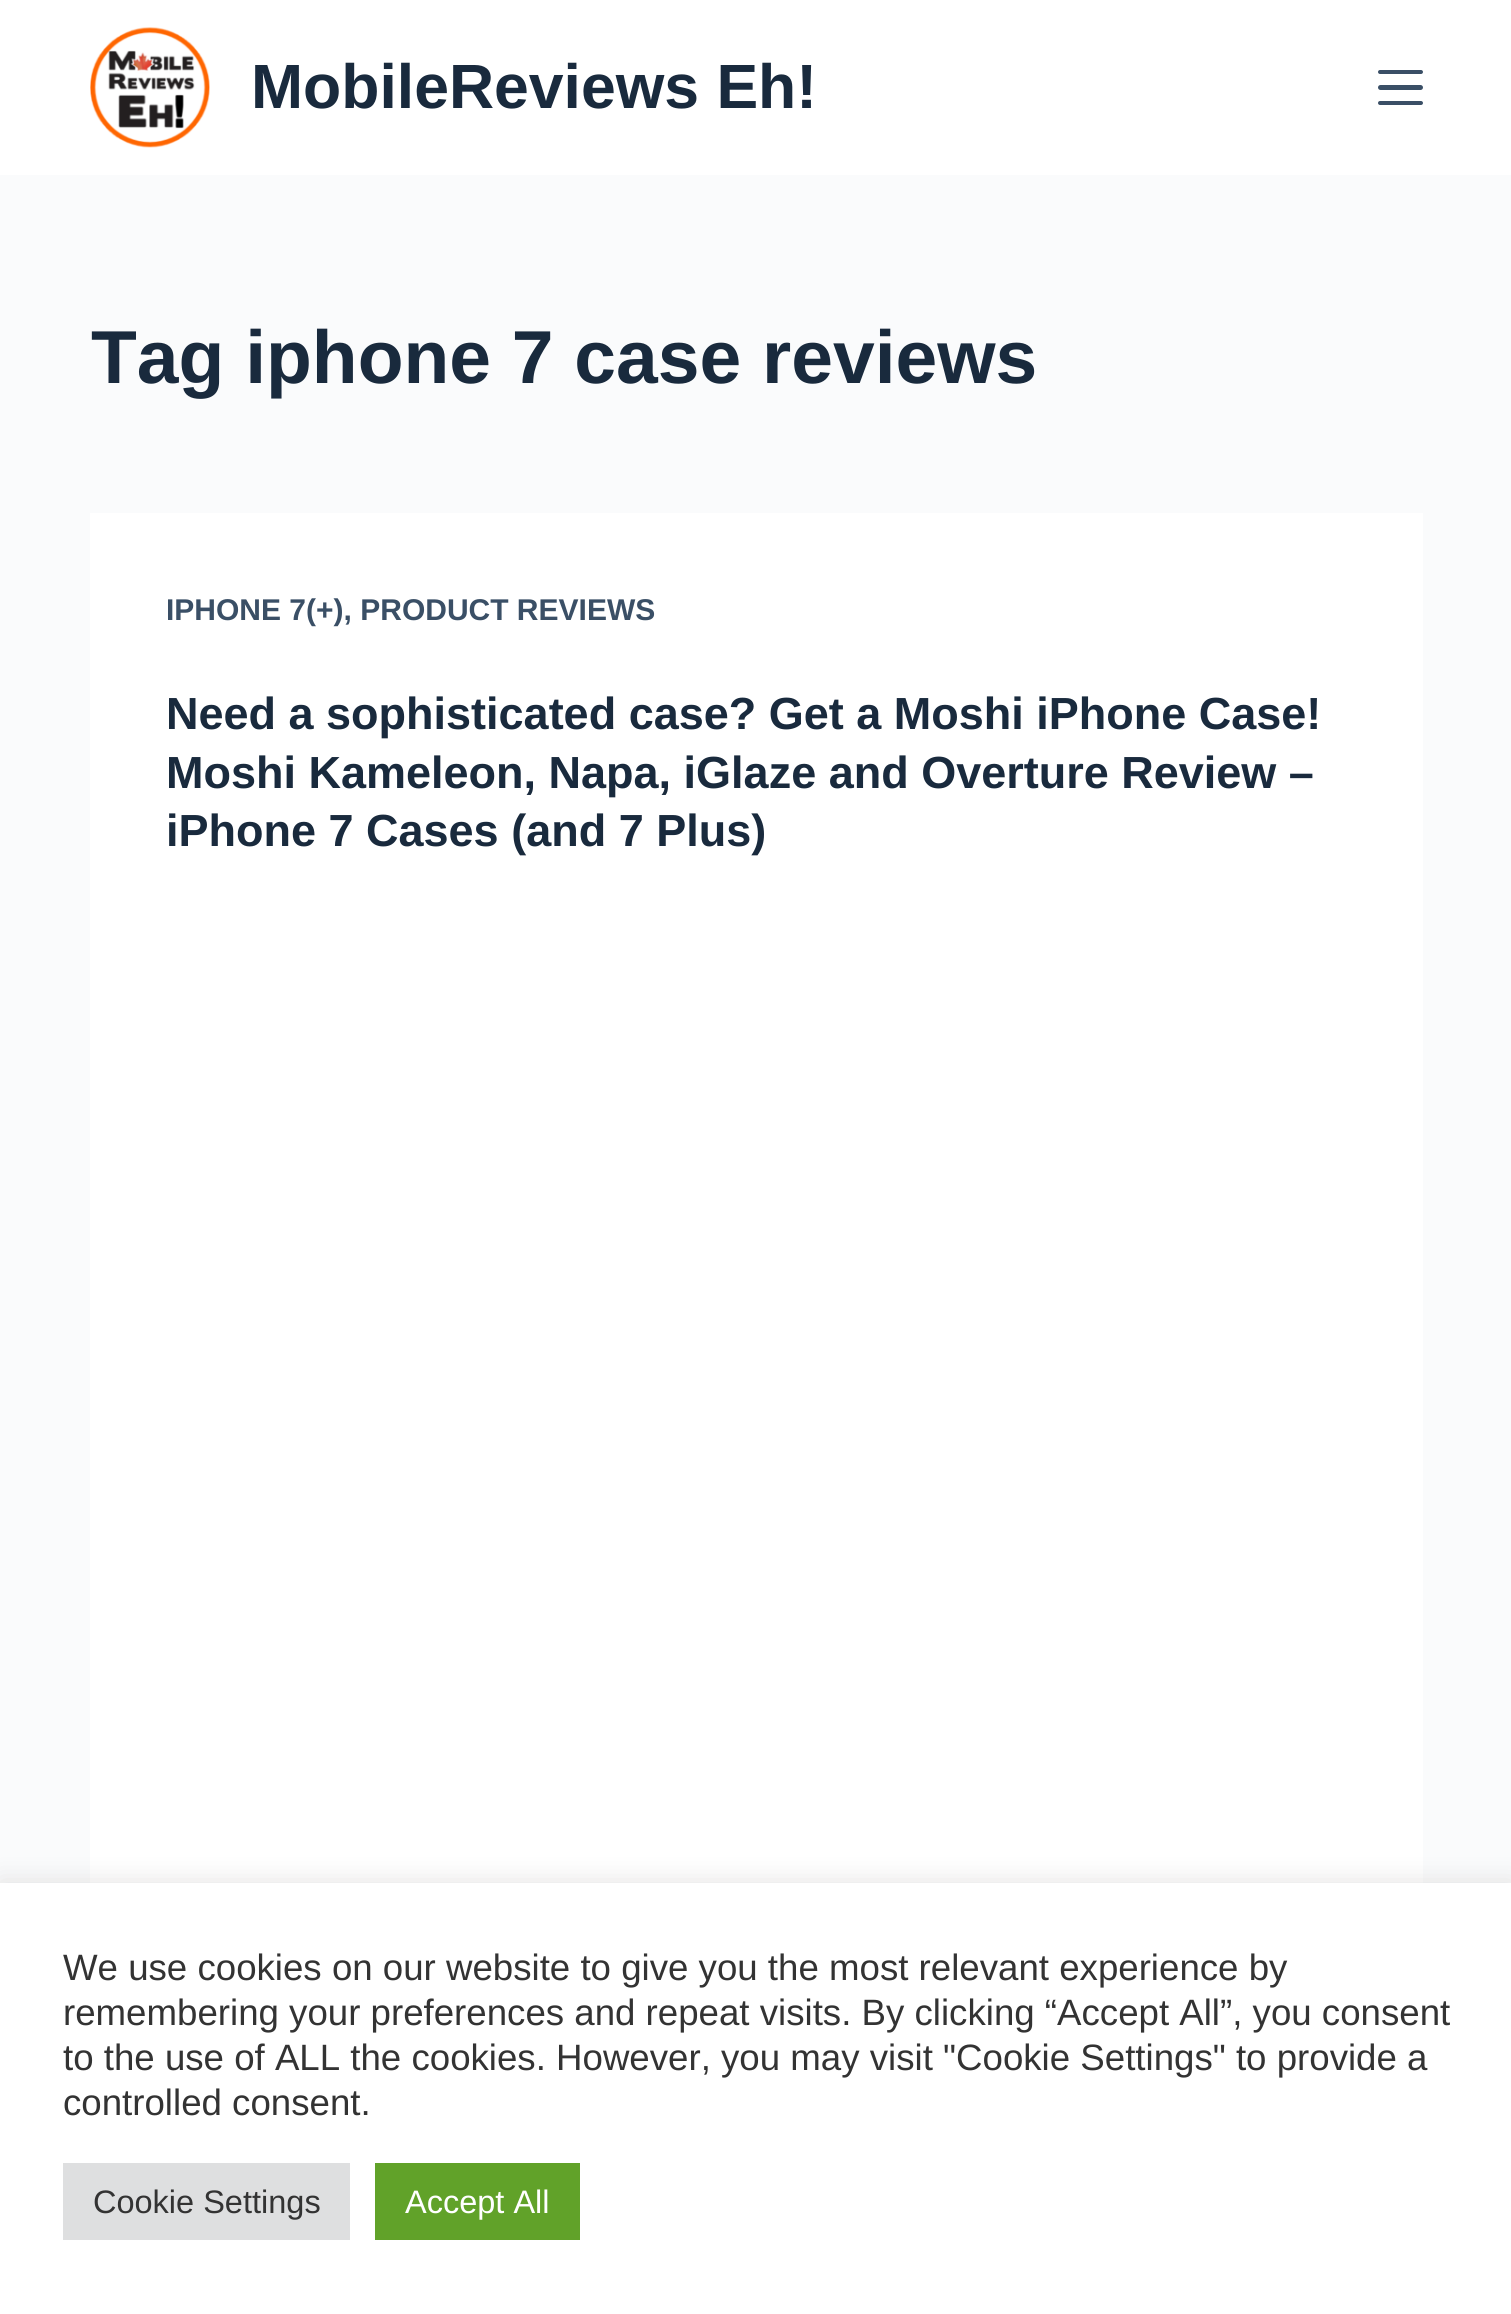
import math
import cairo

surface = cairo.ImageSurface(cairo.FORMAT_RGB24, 1511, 2314)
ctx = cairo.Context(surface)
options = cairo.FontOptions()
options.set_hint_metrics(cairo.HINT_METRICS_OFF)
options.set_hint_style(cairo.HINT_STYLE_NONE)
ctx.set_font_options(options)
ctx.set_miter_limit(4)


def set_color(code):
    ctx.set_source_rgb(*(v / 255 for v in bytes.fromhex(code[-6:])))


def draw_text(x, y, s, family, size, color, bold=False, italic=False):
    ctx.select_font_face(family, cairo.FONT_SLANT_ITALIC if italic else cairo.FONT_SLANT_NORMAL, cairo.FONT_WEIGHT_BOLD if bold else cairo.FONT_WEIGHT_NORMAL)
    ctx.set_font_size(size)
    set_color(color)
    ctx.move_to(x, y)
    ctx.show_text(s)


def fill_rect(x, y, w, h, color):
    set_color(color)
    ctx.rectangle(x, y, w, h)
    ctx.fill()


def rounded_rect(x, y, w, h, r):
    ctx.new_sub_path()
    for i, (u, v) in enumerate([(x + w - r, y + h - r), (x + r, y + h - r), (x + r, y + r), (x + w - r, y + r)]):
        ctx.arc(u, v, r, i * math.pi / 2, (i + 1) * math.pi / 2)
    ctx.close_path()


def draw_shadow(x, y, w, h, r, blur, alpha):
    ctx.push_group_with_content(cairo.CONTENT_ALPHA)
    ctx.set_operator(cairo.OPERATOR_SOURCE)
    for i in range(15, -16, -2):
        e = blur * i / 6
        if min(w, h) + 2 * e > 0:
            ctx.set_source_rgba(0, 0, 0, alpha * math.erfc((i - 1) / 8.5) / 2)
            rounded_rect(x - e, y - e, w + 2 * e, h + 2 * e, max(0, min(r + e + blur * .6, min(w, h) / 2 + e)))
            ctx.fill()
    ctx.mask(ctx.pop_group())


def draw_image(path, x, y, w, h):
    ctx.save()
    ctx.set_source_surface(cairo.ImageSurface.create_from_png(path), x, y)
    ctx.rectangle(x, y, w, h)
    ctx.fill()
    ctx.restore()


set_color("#fafbfc")
ctx.paint()
fill_rect(0, 0, 1511, 175, "#ffffff")
draw_image("assets/img1.png", 90, 27, 120, 121)
draw_text(251, 108, "MobileReviews Eh!", "Liberation Sans", 62.5, "#192a3d", bold=True)
set_color("#3a4f66")
rounded_rect(1378, 70, 45, 4, 2)
ctx.fill()
rounded_rect(1378, 85, 45, 5, 2.5)
ctx.fill()
rounded_rect(1378, 101, 45, 4, 2)
ctx.fill()
draw_text(91, 383, "Tag iphone 7 case reviews", "Liberation Sans", 75, "#192a3d", bold=True)
fill_rect(90, 513, 1333, 1370, "#ffffff")
draw_text(166, 620, "IPHONE 7(+), PRODUCT REVIEWS", "Liberation Sans", 30, "#3a4f66", bold=True)
draw_text(166, 729, "Need a sophisticated case? Get a Moshi iPhone Case!", "Liberation Sans", 45, "#192a3d", bold=True)
draw_text(166, 788, "Moshi Kameleon, Napa, iGlaze and Overture Review –", "Liberation Sans", 45, "#192a3d", bold=True)
draw_text(166, 846, "iPhone 7 Cases (and 7 Plus)", "Liberation Sans", 45, "#192a3d", bold=True)
set_color("#acabab")
draw_shadow(0, 1880, 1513, 433, 0, 12.5, 0.3)
fill_rect(0, 1883, 1511, 431, "#ffffff")
draw_text(63, 1980, "We use cookies on our website to give you the most relevant experience by", "Liberation Sans", 36.65, "#333333")
draw_text(63, 2025, "remembering your preferences and repeat visits. By clicking “Accept All”, you consent", "Liberation Sans", 36.65, "#333333")
draw_text(63, 2070, "to the use of ALL the cookies. However, you may visit \"Cookie Settings\" to provide a", "Liberation Sans", 36.65, "#333333")
draw_text(63, 2115, "controlled consent.", "Liberation Sans", 36.65, "#333333")
fill_rect(63, 2163, 287, 77, "#dedfe0")
draw_text(93, 2213, "Cookie Settings", "Liberation Sans", 32.5, "#333333")
fill_rect(375, 2163, 205, 77, "#61a229")
draw_text(405, 2213, "Accept All", "Liberation Sans", 32.5, "#ffffff")
surface.write_to_png("output.png")
